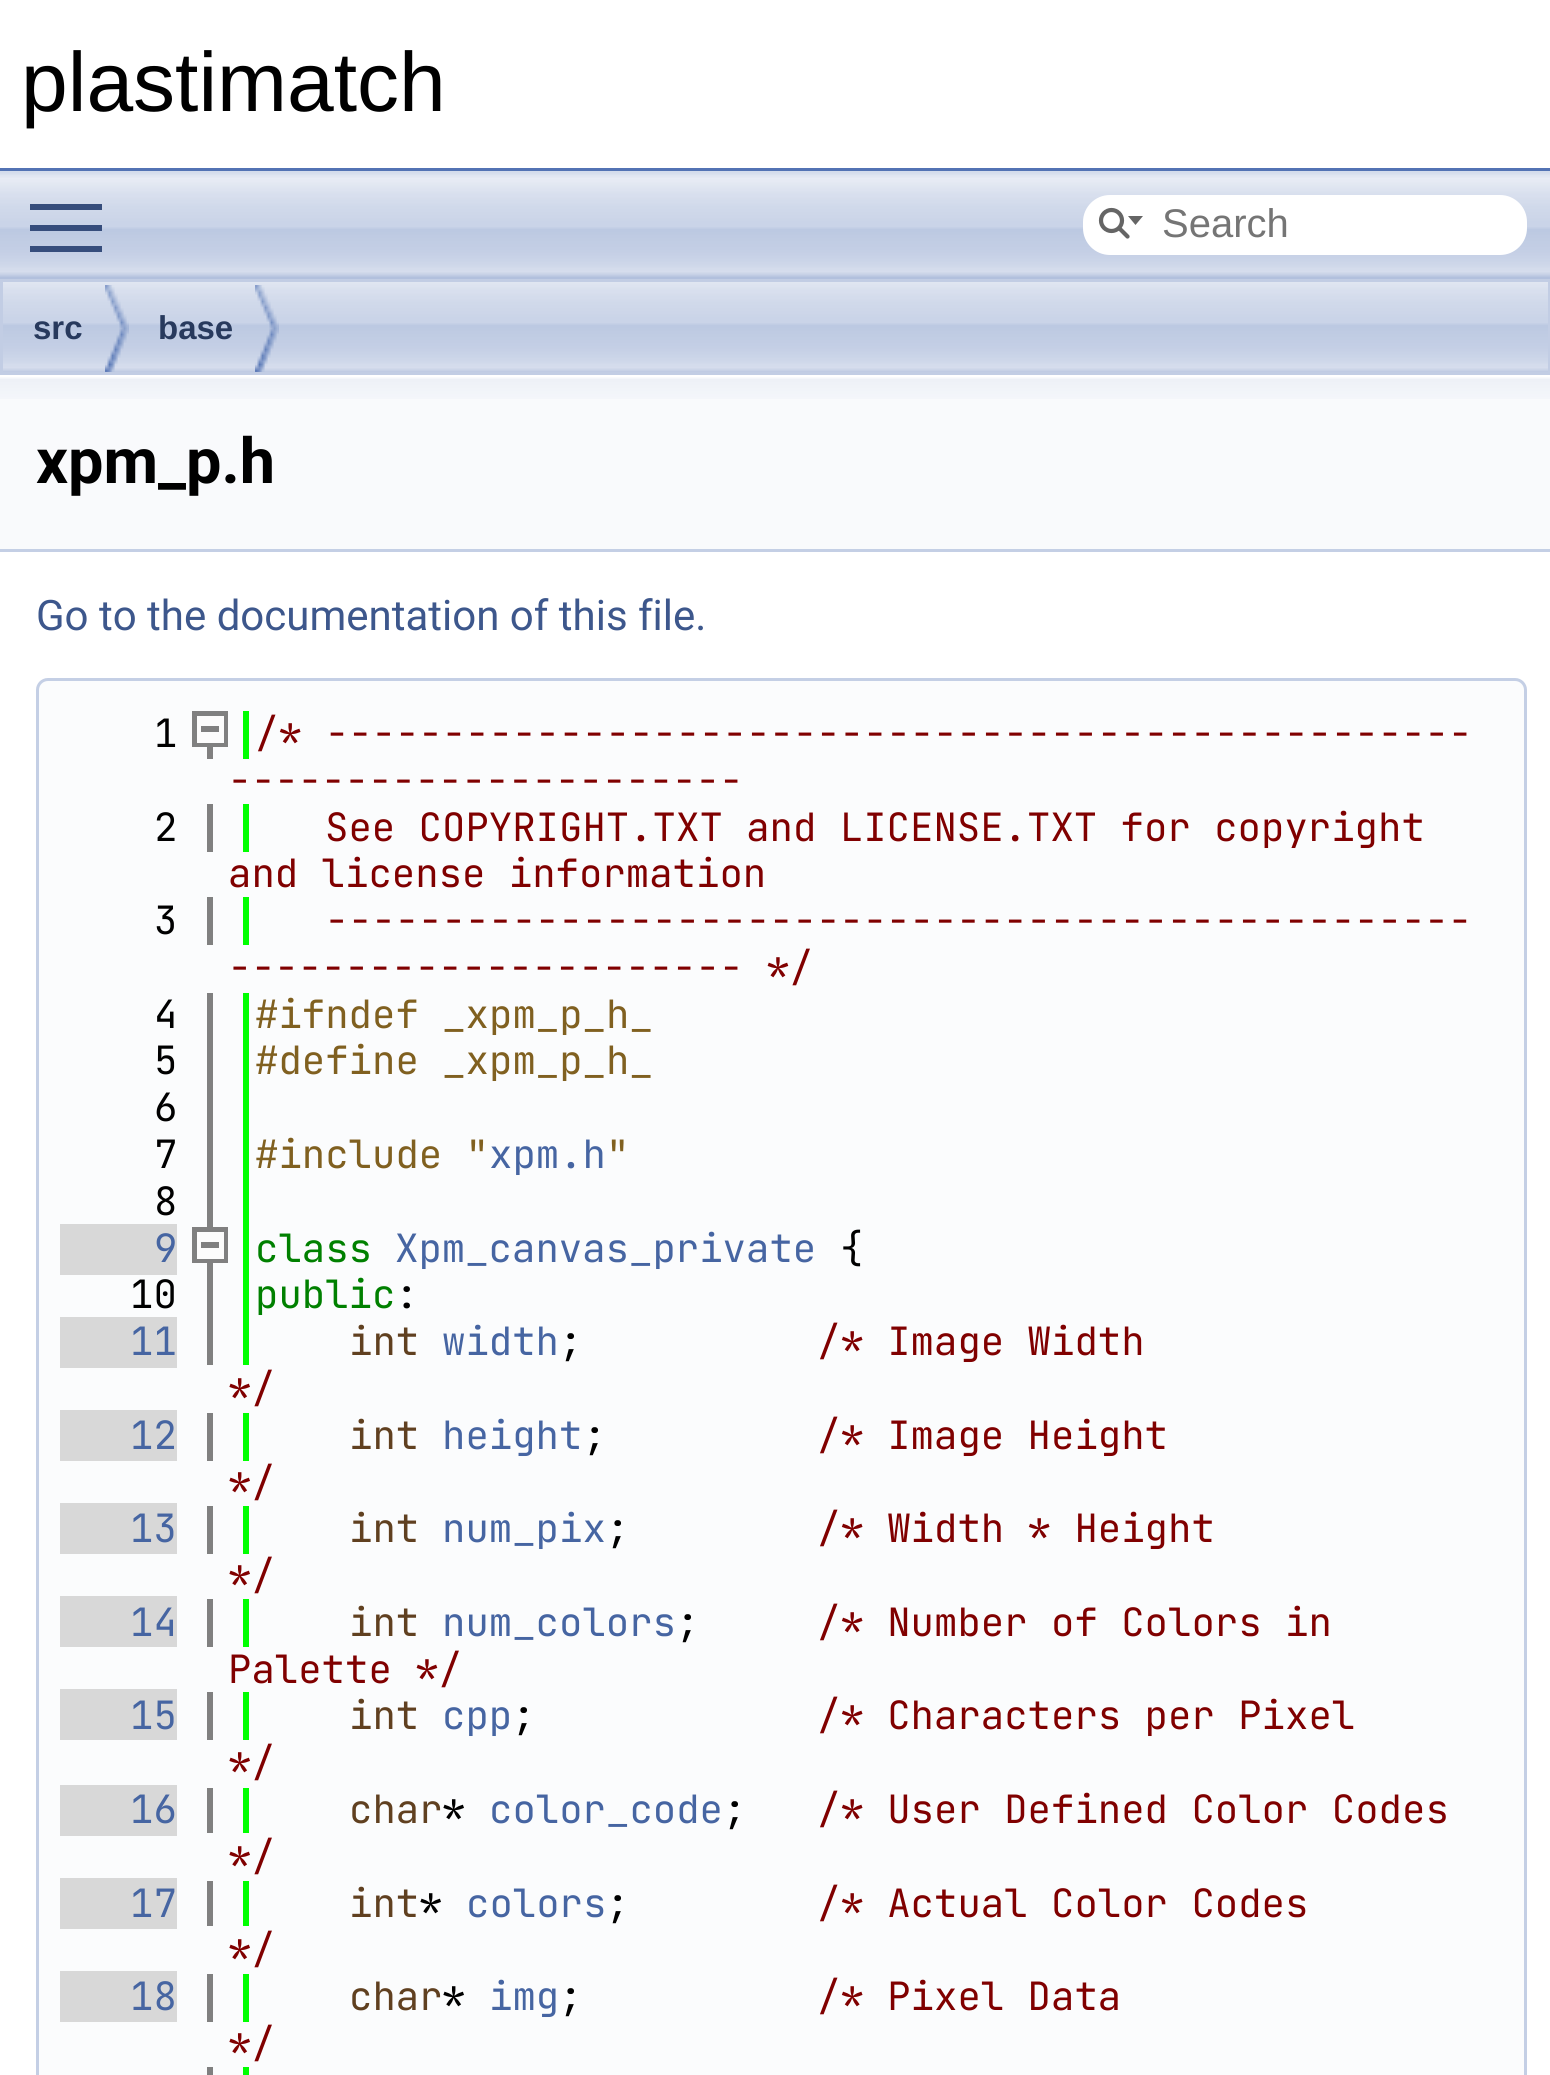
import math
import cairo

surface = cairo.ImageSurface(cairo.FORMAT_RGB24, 1550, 2075)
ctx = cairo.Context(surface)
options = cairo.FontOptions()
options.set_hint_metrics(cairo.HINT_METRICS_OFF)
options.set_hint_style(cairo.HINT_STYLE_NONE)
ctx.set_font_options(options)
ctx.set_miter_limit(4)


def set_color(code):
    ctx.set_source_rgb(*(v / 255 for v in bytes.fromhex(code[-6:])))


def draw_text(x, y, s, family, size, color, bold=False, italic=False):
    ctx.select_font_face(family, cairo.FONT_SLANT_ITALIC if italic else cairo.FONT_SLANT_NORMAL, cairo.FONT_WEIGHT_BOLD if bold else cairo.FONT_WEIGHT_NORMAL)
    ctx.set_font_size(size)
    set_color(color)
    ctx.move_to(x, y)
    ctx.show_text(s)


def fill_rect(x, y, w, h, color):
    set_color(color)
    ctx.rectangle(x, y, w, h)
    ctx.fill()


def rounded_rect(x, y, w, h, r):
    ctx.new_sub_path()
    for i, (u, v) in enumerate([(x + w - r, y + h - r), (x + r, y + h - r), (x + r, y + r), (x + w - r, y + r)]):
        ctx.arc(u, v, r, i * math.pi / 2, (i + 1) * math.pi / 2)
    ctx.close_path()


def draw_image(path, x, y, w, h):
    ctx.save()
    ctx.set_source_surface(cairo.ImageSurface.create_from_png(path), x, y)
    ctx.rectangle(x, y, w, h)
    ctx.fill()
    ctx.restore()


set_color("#ffffff")
ctx.paint()
fill_rect(0, 168, 1550, 3, "#5373b4")
draw_text(21, 111, "plastimatch", "Liberation Sans", 84, "#000000")
draw_image("assets/img1.png", 0, 171, 1550, 108)
fill_rect(30, 225, 72, 6, "#364d7c")
fill_rect(30, 204, 72, 6, "#364d7c")
fill_rect(30, 246, 72, 6, "#364d7c")
set_color("#ffffff")
rounded_rect(1083, 195, 444, 60, 27)
ctx.fill()
ctx.arc(1111.5, 220.5, 10.5, 0, 2 * math.pi)
set_color("#656565")
ctx.set_line_width(4.2)
ctx.stroke()
ctx.new_path()
ctx.move_to(1128, 216)
ctx.line_to(1135.5, 225)
ctx.line_to(1143, 216)
ctx.close_path()
ctx.fill()
ctx.new_path()
ctx.move_to(1119.5, 228.5)
ctx.line_to(1127.5, 236.5)
ctx.set_line_cap(cairo.LINE_CAP_ROUND)
ctx.stroke()
draw_text(1162, 237, "Search", "Liberation Sans", 40, "#757575")
draw_image("assets/img2.png", 3, 282, 1545, 90)
ctx.rectangle(1.5, 280.5, 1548, 93)
set_color("#c2cde4")
ctx.set_line_width(3)
ctx.set_line_cap(cairo.LINE_CAP_BUTT)
ctx.stroke()
draw_image("assets/img3.png", 105, 285, 24, 87)
draw_text(33, 339, "src", "Liberation Sans", 33, "#283a5d", bold=True)
draw_image("assets/img3.png", 255, 285, 24, 87)
draw_text(158, 339, "base", "Liberation Sans", 33, "#283a5d", bold=True)
fill_rect(0, 399, 1550, 150, "#f9fafc")
draw_image("assets/img4.png", 0, 375, 1550, 24)
fill_rect(0, 549, 1550, 3, "#c4cfe5")
draw_text(36, 483, "xpm_p.h", "Roboto", 63, "#000000", bold=True)
draw_text(36, 630, "Go to the documentation of this file.", "Roboto", 42, "#3d578c")
set_color("#fbfcfd")
ctx.new_path()
ctx.move_to(48, 678)
ctx.line_to(1515, 678)
ctx.curve_to(1521.5, 678, 1527, 683.5, 1527, 690)
ctx.line_to(1527, 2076)
ctx.line_to(36, 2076)
ctx.line_to(36, 690)
ctx.curve_to(36, 683.5, 41.5, 678, 48, 678)
ctx.close_path()
ctx.fill()
rounded_rect(37.5, 679.5, 1488, 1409, 10.5)
set_color("#c4cfe5")
ctx.stroke()
fill_rect(207, 747, 6, 12, "#808080")
fill_rect(243, 711, 6, 48, "#00ff00")
draw_text(154, 747, "1", "JetBrains Mono", 39, "#000000")
fill_rect(192, 711, 36, 36, "#808080")
fill_rect(197, 716, 27, 27, "#fcfcfc")
fill_rect(201, 726, 18, 6, "#808080")
draw_text(255, 747, "/* -------------------------------------------------", "JetBrains Mono", 39, "#800000")
draw_text(228, 794, "----------------------", "JetBrains Mono", 39, "#800000")
fill_rect(207, 804, 6, 48, "#808080")
fill_rect(243, 804, 6, 48, "#00ff00")
draw_text(154, 841, "2", "JetBrains Mono", 39, "#000000")
draw_text(325, 841, "See COPYRIGHT.TXT and LICENSE.TXT for copyright", "JetBrains Mono", 39, "#800000")
draw_text(228, 887, "and license information", "JetBrains Mono", 39, "#800000")
fill_rect(207, 897, 6, 48, "#808080")
fill_rect(243, 897, 6, 48, "#00ff00")
draw_text(154, 934, "3", "JetBrains Mono", 39, "#000000")
draw_text(325, 934, "-------------------------------------------------", "JetBrains Mono", 39, "#800000")
draw_text(228, 981, "---------------------- */", "JetBrains Mono", 39, "#800000")
fill_rect(207, 993, 6, 234, "#808080")
fill_rect(243, 993, 6, 372, "#00ff00")
draw_text(154, 1028, "4", "JetBrains Mono", 39, "#000000")
draw_text(255, 1028, "#ifndef _xpm_p_h_", "JetBrains Mono", 39, "#806020")
draw_text(154, 1074, "5", "JetBrains Mono", 39, "#000000")
draw_text(255, 1074, "#define _xpm_p_h_", "JetBrains Mono", 39, "#806020")
draw_text(154, 1121, "6", "JetBrains Mono", 39, "#000000")
draw_text(154, 1168, "7", "JetBrains Mono", 39, "#000000")
draw_text(255, 1168, "#include \"", "JetBrains Mono", 39, "#806020")
draw_text(489, 1168, "xpm.h", "JetBrains Mono", 39, "#4665a2")
draw_text(606, 1168, "\"", "JetBrains Mono", 39, "#806020")
draw_text(154, 1215, "8", "JetBrains Mono", 39, "#000000")
fill_rect(207, 1263, 6, 102, "#808080")
fill_rect(60, 1224, 117, 51, "#d8d8d8")
draw_text(154, 1262, "9", "JetBrains Mono", 39, "#4665a2")
fill_rect(192, 1227, 36, 36, "#808080")
fill_rect(197, 1232, 27, 27, "#fcfcfc")
fill_rect(201, 1242, 18, 6, "#808080")
draw_text(255, 1262, "class", "JetBrains Mono", 39, "#008000")
draw_text(395, 1262, "Xpm_canvas_private", "JetBrains Mono", 39, "#4665a2")
draw_text(840, 1262, "{", "JetBrains Mono", 39, "#000000")
draw_text(130, 1308, "10", "JetBrains Mono", 39, "#000000")
draw_text(255, 1308, "public", "JetBrains Mono", 39, "#008000")
draw_text(395, 1308, ":", "JetBrains Mono", 39, "#000000")
fill_rect(60, 1317, 117, 51, "#d8d8d8")
draw_text(130, 1355, "11", "JetBrains Mono", 39, "#4665a2")
draw_text(349, 1355, "int", "JetBrains Mono", 39, "#604020")
draw_text(442, 1355, "width", "JetBrains Mono", 39, "#4665a2")
draw_text(559, 1355, ";", "JetBrains Mono", 39, "#000000")
draw_text(817, 1355, "/* Image Width", "JetBrains Mono", 39, "#800000")
draw_text(228, 1402, "*/", "JetBrains Mono", 39, "#800000")
fill_rect(207, 1413, 6, 48, "#808080")
fill_rect(243, 1413, 6, 48, "#00ff00")
fill_rect(60, 1410, 117, 51, "#d8d8d8")
draw_text(130, 1449, "12", "JetBrains Mono", 39, "#4665a2")
draw_text(349, 1449, "int", "JetBrains Mono", 39, "#604020")
draw_text(442, 1449, "height", "JetBrains Mono", 39, "#4665a2")
draw_text(583, 1449, ";", "JetBrains Mono", 39, "#000000")
draw_text(817, 1449, "/* Image Height", "JetBrains Mono", 39, "#800000")
draw_text(228, 1496, "*/", "JetBrains Mono", 39, "#800000")
fill_rect(207, 1506, 6, 48, "#808080")
fill_rect(243, 1506, 6, 48, "#00ff00")
fill_rect(60, 1503, 117, 51, "#d8d8d8")
draw_text(130, 1542, "13", "JetBrains Mono", 39, "#4665a2")
draw_text(349, 1542, "int", "JetBrains Mono", 39, "#604020")
draw_text(442, 1542, "num_pix", "JetBrains Mono", 39, "#4665a2")
draw_text(606, 1542, ";", "JetBrains Mono", 39, "#000000")
draw_text(817, 1542, "/* Width * Height", "JetBrains Mono", 39, "#800000")
draw_text(228, 1589, "*/", "JetBrains Mono", 39, "#800000")
fill_rect(207, 1599, 6, 48, "#808080")
fill_rect(243, 1599, 6, 48, "#00ff00")
fill_rect(60, 1596, 117, 51, "#d8d8d8")
draw_text(130, 1636, "14", "JetBrains Mono", 39, "#4665a2")
draw_text(349, 1636, "int", "JetBrains Mono", 39, "#604020")
draw_text(442, 1636, "num_colors", "JetBrains Mono", 39, "#4665a2")
draw_text(676, 1636, ";", "JetBrains Mono", 39, "#000000")
draw_text(817, 1636, "/* Number of Colors in", "JetBrains Mono", 39, "#800000")
draw_text(228, 1683, "Palette */", "JetBrains Mono", 39, "#800000")
fill_rect(207, 1692, 6, 48, "#808080")
fill_rect(243, 1692, 6, 48, "#00ff00")
fill_rect(60, 1689, 117, 51, "#d8d8d8")
draw_text(130, 1729, "15", "JetBrains Mono", 39, "#4665a2")
draw_text(349, 1729, "int", "JetBrains Mono", 39, "#604020")
draw_text(442, 1729, "cpp", "JetBrains Mono", 39, "#4665a2")
draw_text(512, 1729, ";", "JetBrains Mono", 39, "#000000")
draw_text(817, 1729, "/* Characters per Pixel", "JetBrains Mono", 39, "#800000")
draw_text(228, 1776, "*/", "JetBrains Mono", 39, "#800000")
fill_rect(207, 1788, 6, 45, "#808080")
fill_rect(243, 1788, 6, 45, "#00ff00")
fill_rect(60, 1785, 117, 51, "#d8d8d8")
draw_text(130, 1823, "16", "JetBrains Mono", 39, "#4665a2")
draw_text(349, 1823, "char", "JetBrains Mono", 39, "#604020")
draw_text(442, 1823, "*", "JetBrains Mono", 39, "#000000")
draw_text(489, 1823, "color_code", "JetBrains Mono", 39, "#4665a2")
draw_text(723, 1823, ";", "JetBrains Mono", 39, "#000000")
draw_text(817, 1823, "/* User Defined Color Codes", "JetBrains Mono", 39, "#800000")
draw_text(228, 1870, "*/", "JetBrains Mono", 39, "#800000")
fill_rect(207, 1881, 6, 45, "#808080")
fill_rect(243, 1881, 6, 45, "#00ff00")
fill_rect(60, 1878, 117, 51, "#d8d8d8")
draw_text(130, 1917, "17", "JetBrains Mono", 39, "#4665a2")
draw_text(349, 1917, "int", "JetBrains Mono", 39, "#604020")
draw_text(419, 1917, "*", "JetBrains Mono", 39, "#000000")
draw_text(466, 1917, "colors", "JetBrains Mono", 39, "#4665a2")
draw_text(606, 1917, ";", "JetBrains Mono", 39, "#000000")
draw_text(817, 1917, "/* Actual Color Codes", "JetBrains Mono", 39, "#800000")
draw_text(228, 1963, "*/", "JetBrains Mono", 39, "#800000")
fill_rect(207, 1974, 6, 48, "#808080")
fill_rect(243, 1974, 6, 48, "#00ff00")
fill_rect(60, 1971, 117, 51, "#d8d8d8")
draw_text(130, 2010, "18", "JetBrains Mono", 39, "#4665a2")
draw_text(349, 2010, "char", "JetBrains Mono", 39, "#604020")
draw_text(442, 2010, "*", "JetBrains Mono", 39, "#000000")
draw_text(489, 2010, "img", "JetBrains Mono", 39, "#4665a2")
draw_text(559, 2010, ";", "JetBrains Mono", 39, "#000000")
draw_text(817, 2010, "/* Pixel Data", "JetBrains Mono", 39, "#800000")
draw_text(228, 2057, "*/", "JetBrains Mono", 39, "#800000")
fill_rect(207, 2067, 6, 8, "#808080")
fill_rect(243, 2067, 6, 8, "#00ff00")
surface.write_to_png("output.png")
